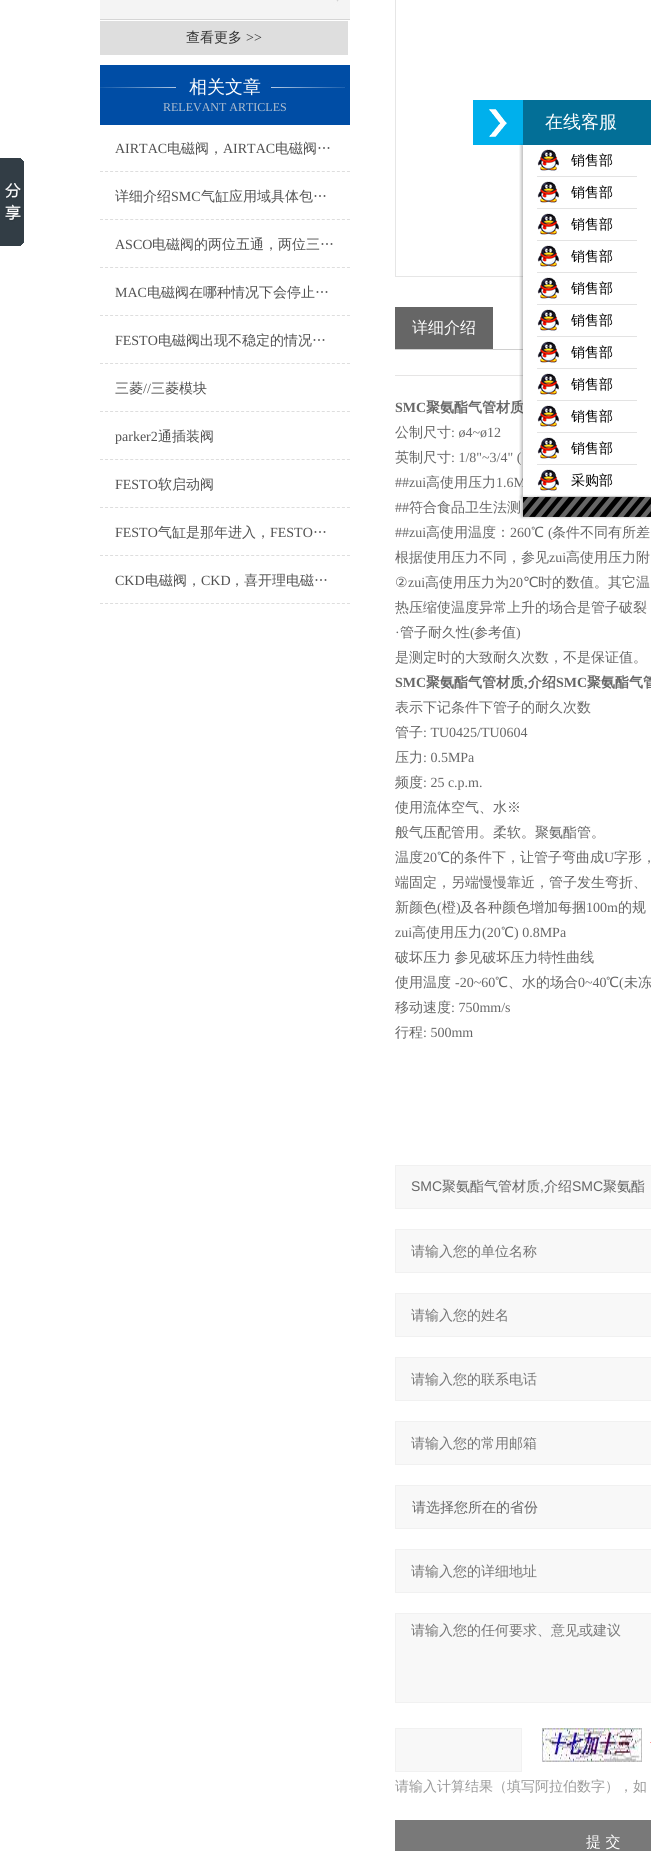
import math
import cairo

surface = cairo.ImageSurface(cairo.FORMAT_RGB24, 651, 1851)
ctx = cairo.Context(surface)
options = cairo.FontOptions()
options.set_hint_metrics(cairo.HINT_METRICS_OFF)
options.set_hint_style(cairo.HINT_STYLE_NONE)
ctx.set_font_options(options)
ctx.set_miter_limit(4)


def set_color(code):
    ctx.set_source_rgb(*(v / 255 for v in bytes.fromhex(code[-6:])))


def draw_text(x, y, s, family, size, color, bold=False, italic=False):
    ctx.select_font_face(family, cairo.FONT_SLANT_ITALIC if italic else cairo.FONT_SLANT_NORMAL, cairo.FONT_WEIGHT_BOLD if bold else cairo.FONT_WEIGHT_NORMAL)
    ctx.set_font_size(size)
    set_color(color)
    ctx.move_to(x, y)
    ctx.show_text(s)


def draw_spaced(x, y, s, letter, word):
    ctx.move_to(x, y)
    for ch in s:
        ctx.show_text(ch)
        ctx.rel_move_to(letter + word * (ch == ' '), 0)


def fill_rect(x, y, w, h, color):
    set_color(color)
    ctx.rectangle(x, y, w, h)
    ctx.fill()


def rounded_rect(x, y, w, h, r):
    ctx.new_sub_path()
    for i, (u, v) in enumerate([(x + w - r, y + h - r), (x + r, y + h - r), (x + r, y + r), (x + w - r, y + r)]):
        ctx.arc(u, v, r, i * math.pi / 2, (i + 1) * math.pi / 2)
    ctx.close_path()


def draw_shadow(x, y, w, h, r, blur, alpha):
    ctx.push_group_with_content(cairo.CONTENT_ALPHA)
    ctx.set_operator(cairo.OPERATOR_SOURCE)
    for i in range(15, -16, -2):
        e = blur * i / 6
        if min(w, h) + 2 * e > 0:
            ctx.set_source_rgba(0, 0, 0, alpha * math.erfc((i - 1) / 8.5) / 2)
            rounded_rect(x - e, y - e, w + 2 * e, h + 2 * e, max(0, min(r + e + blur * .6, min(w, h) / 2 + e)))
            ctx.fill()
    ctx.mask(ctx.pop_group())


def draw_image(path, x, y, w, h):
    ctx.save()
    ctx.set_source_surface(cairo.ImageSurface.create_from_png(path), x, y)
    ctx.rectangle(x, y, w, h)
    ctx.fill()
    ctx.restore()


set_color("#ffffff")
ctx.paint()
draw_image("assets/img1.png", 100, 0, 250, 20)
fill_rect(100, 21, 248, 34, "#dedede")
draw_text(186, 42, "查看更多", "WenQuanYi Zen Hei Medium", 14, "#333333")
draw_text(246, 42, ">>", "Liberation Serif", 14, "#333333")
draw_image("assets/img2.png", 100, 65, 250, 60)
draw_text(189, 93, "相关文章", "WenQuanYi Zen Hei Medium", 18, "#ffffff")
draw_text(163, 111, "RELEVANT ARTICLES", "Liberation Serif", 12, "#b0bfd0")
ctx.new_path()
ctx.move_to(100, 171.5)
ctx.line_to(350, 171.5)
set_color("#dedede")
ctx.set_line_width(1)
ctx.set_dash([3, 2.04])
ctx.stroke()
draw_text(115, 153, "AIRTAC", "Liberation Serif", 14, "#515151")
draw_text(167, 153, "电磁阀，", "WenQuanYi Zen Hei Medium", 14, "#515151")
draw_text(223, 153, "AIRTAC", "Liberation Serif", 14, "#515151")
draw_text(275, 153, "电磁阀…", "WenQuanYi Zen Hei Medium", 14, "#515151")
ctx.new_path()
ctx.move_to(100, 219.5)
ctx.line_to(350, 219.5)
set_color("#dedede")
ctx.stroke()
draw_text(115, 201, "详细介绍", "WenQuanYi Zen Hei Medium", 14, "#515151")
draw_text(171, 201, "SMC", "Liberation Serif", 14, "#515151")
draw_text(201, 201, "气缸应用域具体包…", "WenQuanYi Zen Hei Medium", 14, "#515151")
ctx.new_path()
ctx.move_to(100, 267.5)
ctx.line_to(350, 267.5)
set_color("#dedede")
ctx.stroke()
draw_text(115, 249, "ASCO", "Liberation Serif", 14, "#515151")
draw_text(152, 249, "电磁阀的两位五通，两位三…", "WenQuanYi Zen Hei Medium", 14, "#515151")
ctx.new_path()
ctx.move_to(100, 315.5)
ctx.line_to(350, 315.5)
set_color("#dedede")
ctx.stroke()
draw_text(115, 297, "MAC", "Liberation Serif", 14, "#515151")
draw_text(147, 297, "电磁阀在哪种情况下会停止…", "WenQuanYi Zen Hei Medium", 14, "#515151")
ctx.new_path()
ctx.move_to(100, 363.5)
ctx.line_to(350, 363.5)
set_color("#dedede")
ctx.stroke()
draw_text(115, 345, "FESTO", "Liberation Serif", 14, "#515151")
draw_text(158, 345, "电磁阀出现不稳定的情况…", "WenQuanYi Zen Hei Medium", 14, "#515151")
ctx.new_path()
ctx.move_to(100, 411.5)
ctx.line_to(350, 411.5)
set_color("#dedede")
ctx.stroke()
draw_text(115, 393, "三菱", "WenQuanYi Zen Hei Medium", 14, "#515151")
draw_text(143, 393, "//", "Liberation Serif", 14, "#515151")
draw_text(151, 393, "三菱模块", "WenQuanYi Zen Hei Medium", 14, "#515151")
ctx.new_path()
ctx.move_to(100, 459.5)
ctx.line_to(350, 459.5)
set_color("#dedede")
ctx.stroke()
draw_text(115, 441, "parker2", "Liberation Serif", 14, "#515151")
draw_text(158, 441, "通插装阀", "WenQuanYi Zen Hei Medium", 14, "#515151")
ctx.new_path()
ctx.move_to(100, 507.5)
ctx.line_to(350, 507.5)
set_color("#dedede")
ctx.stroke()
draw_text(115, 489, "FESTO", "Liberation Serif", 14, "#515151")
draw_text(158, 489, "软启动阀", "WenQuanYi Zen Hei Medium", 14, "#515151")
ctx.new_path()
ctx.move_to(100, 555.5)
ctx.line_to(350, 555.5)
set_color("#dedede")
ctx.stroke()
draw_text(115, 537, "FESTO", "Liberation Serif", 14, "#515151")
draw_text(158, 537, "气缸是那年进入，", "WenQuanYi Zen Hei Medium", 14, "#515151")
draw_text(270, 537, "FESTO", "Liberation Serif", 14, "#515151")
draw_text(313, 537, "…", "WenQuanYi Zen Hei Medium", 14, "#515151")
ctx.new_path()
ctx.move_to(100, 603.5)
ctx.line_to(350, 603.5)
set_color("#dedede")
ctx.stroke()
draw_text(115, 585, "CKD", "Liberation Serif", 14, "#515151")
draw_text(145, 585, "电磁阀，", "WenQuanYi Zen Hei Medium", 14, "#515151")
draw_text(201, 585, "CKD", "Liberation Serif", 14, "#515151")
draw_text(230, 585, "，喜开理电磁…", "WenQuanYi Zen Hei Medium", 14, "#515151")
ctx.rectangle(395.5, -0.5, 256, 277)
set_color("#e6e6e6")
ctx.set_dash([])
ctx.stroke()
fill_rect(395, 349, 128, 1, "#d0d0d0")
fill_rect(395, 307, 98, 42, "#666666")
draw_text(412, 333, "详细介绍", "WenQuanYi Zen Hei Medium", 16, "#ffffff")
fill_rect(395, 375, 128, 1, "#e6e5e5")
draw_text(395, 412, "SMC", "Liberation Serif", 14, "#666666", bold=True)
draw_text(426, 412, "聚氨酯气管材质", "WenQuanYi Zen Hei", 14, "#666666", bold=True)
draw_text(395, 437, "公制尺寸", "WenQuanYi Zen Hei Medium", 14, "#666666")
draw_text(451, 437, ": ø4~ø12", "Liberation Serif", 14, "#666666")
draw_text(395, 462, "英制尺寸", "WenQuanYi Zen Hei Medium", 14, "#666666")
draw_text(451, 462, ": 1/8\"~3/4\" (", "Liberation Serif", 14, "#666666")
draw_text(395, 487, "##zui", "Liberation Serif", 14, "#666666")
draw_text(426, 487, "高使用压力", "WenQuanYi Zen Hei Medium", 14, "#666666")
draw_text(496, 487, "1.6M", "Liberation Serif", 14, "#666666")
draw_text(395, 512, "##", "Liberation Serif", 14, "#666666")
draw_text(409, 512, "符合食品卫生法测", "WenQuanYi Zen Hei Medium", 14, "#666666")
draw_text(395, 537, "##zui", "Liberation Serif", 14, "#666666")
draw_text(426, 537, "高使用温度：", "WenQuanYi Zen Hei Medium", 14, "#666666")
draw_text(510, 537, "260", "Liberation Serif", 14, "#666666")
draw_text(531, 537, "℃", "WenQuanYi Zen Hei Medium", 14, "#666666")
draw_text(548, 537, "(", "Liberation Serif", 14, "#666666")
draw_text(552, 537, "条件不同有所差", "WenQuanYi Zen Hei Medium", 14, "#666666")
draw_text(395, 562, "根据使用压力不同，参见", "WenQuanYi Zen Hei Medium", 14, "#666666")
draw_text(549, 562, "zui", "Liberation Serif", 14, "#666666")
draw_text(566, 562, "高使用压力附", "WenQuanYi Zen Hei Medium", 14, "#666666")
draw_text(395, 587, "②", "DejaVu Sans", 14, "#666666")
draw_text(408, 587, "zui", "Liberation Serif", 14, "#666666")
draw_text(425, 587, "高使用压力为", "WenQuanYi Zen Hei Medium", 14, "#666666")
draw_text(509, 587, "20", "Liberation Serif", 14, "#666666")
draw_text(523, 587, "℃", "DejaVu Sans", 14, "#666666")
draw_text(538, 587, "时的数值。其它温", "WenQuanYi Zen Hei Medium", 14, "#666666")
draw_text(395, 612, "热压缩使温度异常上升的场合是管子破裂", "WenQuanYi Zen Hei Medium", 14, "#666666")
draw_text(395, 637, "·", "Liberation Serif", 14, "#666666")
draw_text(400, 637, "管子耐久性", "WenQuanYi Zen Hei Medium", 14, "#666666")
draw_text(470, 637, "(", "Liberation Serif", 14, "#666666")
draw_text(474, 637, "参考值", "WenQuanYi Zen Hei Medium", 14, "#666666")
draw_text(516, 637, ")", "Liberation Serif", 14, "#666666")
draw_text(395, 662, "是测定时的大致耐久次数，不是保证值。", "WenQuanYi Zen Hei Medium", 14, "#666666")
draw_text(395, 687, "SMC", "Liberation Serif", 14, "#666666", bold=True)
draw_text(426, 687, "聚氨酯气管材质", "WenQuanYi Zen Hei", 14, "#666666", bold=True)
draw_text(524, 687, ",", "Liberation Serif", 14, "#666666", bold=True)
draw_text(528, 687, "介绍", "WenQuanYi Zen Hei", 14, "#666666", bold=True)
draw_text(556, 687, "SMC", "Liberation Serif", 14, "#666666", bold=True)
draw_text(587, 687, "聚氨酯气管", "WenQuanYi Zen Hei", 14, "#666666", bold=True)
draw_text(395, 712, "表示下记条件下管子的耐久次数", "WenQuanYi Zen Hei Medium", 14, "#666666")
draw_text(395, 737, "管子", "WenQuanYi Zen Hei Medium", 14, "#666666")
draw_text(423, 737, ": TU0425/TU0604", "Liberation Serif", 14, "#666666")
draw_text(395, 762, "压力", "WenQuanYi Zen Hei Medium", 14, "#666666")
draw_text(423, 762, ": 0.5MPa", "Liberation Serif", 14, "#666666")
draw_text(395, 787, "频度", "WenQuanYi Zen Hei Medium", 14, "#666666")
draw_text(423, 787, ": 25 c.p.m.", "Liberation Serif", 14, "#666666")
draw_text(395, 812, "使用流体空气、水※", "WenQuanYi Zen Hei Medium", 14, "#666666")
draw_text(395, 837, "般气压配管用。柔软。聚氨酯管。", "WenQuanYi Zen Hei Medium", 14, "#666666")
draw_text(395, 862, "温度", "WenQuanYi Zen Hei Medium", 14, "#666666")
draw_text(423, 862, "20", "Liberation Serif", 14, "#666666")
draw_text(437, 862, "℃的条件下，让管子弯曲成", "WenQuanYi Zen Hei Medium", 14, "#666666")
draw_text(604, 862, "U", "Liberation Serif", 14, "#666666")
draw_text(614, 862, "字形，", "WenQuanYi Zen Hei Medium", 14, "#666666")
draw_text(395, 887, "端固定，另端慢慢靠近，管子发生弯折、", "WenQuanYi Zen Hei Medium", 14, "#666666")
draw_text(395, 912, "新颜色", "WenQuanYi Zen Hei Medium", 14, "#666666")
draw_text(437, 912, "(", "Liberation Serif", 14, "#666666")
draw_text(442, 912, "橙", "WenQuanYi Zen Hei Medium", 14, "#666666")
draw_text(456, 912, ")", "Liberation Serif", 14, "#666666")
draw_text(460, 912, "及各种颜色增加每捆", "WenQuanYi Zen Hei Medium", 14, "#666666")
draw_text(586, 912, "100m", "Liberation Serif", 14, "#666666")
draw_text(618, 912, "的规", "WenQuanYi Zen Hei Medium", 14, "#666666")
draw_text(395, 937, "zui", "Liberation Serif", 14, "#666666")
draw_text(412, 937, "高使用压力", "WenQuanYi Zen Hei Medium", 14, "#666666")
draw_text(482, 937, "(20", "Liberation Serif", 14, "#666666")
draw_text(501, 937, "℃", "WenQuanYi Zen Hei Medium", 14, "#666666")
draw_text(514, 937, ") 0.8MPa", "Liberation Serif", 14, "#666666")
ctx.select_font_face("WenQuanYi Zen Hei Medium")
draw_spaced(395, 962, "破坏压力 参见破坏压力特性曲线", 0, -1)
draw_text(395, 987, "使用温度", "WenQuanYi Zen Hei Medium", 14, "#666666")
draw_text(455, 987, "-20~60", "Liberation Serif", 14, "#666666")
draw_text(495, 987, "℃、水的场合", "WenQuanYi Zen Hei Medium", 14, "#666666")
draw_text(578, 987, "0~40", "Liberation Serif", 14, "#666666")
draw_text(606, 987, "℃", "WenQuanYi Zen Hei Medium", 14, "#666666")
draw_text(619, 987, "(", "Liberation Serif", 14, "#666666")
draw_text(624, 987, "未冻", "WenQuanYi Zen Hei Medium", 14, "#666666")
draw_text(395, 1012, "移动速度", "WenQuanYi Zen Hei Medium", 14, "#666666")
draw_text(451, 1012, ": 750mm/s", "Liberation Serif", 14, "#666666")
draw_text(395, 1037, "行程", "WenQuanYi Zen Hei Medium", 14, "#666666")
draw_text(423, 1037, ": 500mm", "Liberation Serif", 14, "#666666")
set_color("#f8f8f8")
ctx.rectangle(395.5, 1165.5, 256, 43)
ctx.fill_preserve()
set_color("#f1f1f1")
ctx.stroke()
draw_text(411, 1191, "SMC", "Liberation Sans", 14, "#666666")
draw_text(442, 1191, "聚氨酯气管材质", "WenQuanYi Zen Hei Medium", 14, "#666666")
draw_text(540, 1191, ",", "Liberation Sans", 14, "#666666")
draw_text(544, 1191, "介绍", "WenQuanYi Zen Hei Medium", 14, "#666666")
draw_text(572, 1191, "SMC", "Liberation Sans", 14, "#666666")
draw_text(603, 1191, "聚氨酯", "WenQuanYi Zen Hei Medium", 14, "#666666")
set_color("#f8f8f8")
ctx.rectangle(395.5, 1229.5, 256, 43)
ctx.fill_preserve()
set_color("#f1f1f1")
ctx.stroke()
draw_text(411, 1256, "请输入您的单位名称", "WenQuanYi Zen Hei Medium", 14, "#757575")
set_color("#f8f8f8")
ctx.rectangle(395.5, 1293.5, 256, 43)
ctx.fill_preserve()
set_color("#f1f1f1")
ctx.stroke()
draw_text(411, 1320, "请输入您的姓名", "WenQuanYi Zen Hei Medium", 14, "#757575")
set_color("#f8f8f8")
ctx.rectangle(395.5, 1357.5, 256, 43)
ctx.fill_preserve()
set_color("#f1f1f1")
ctx.stroke()
draw_text(411, 1384, "请输入您的联系电话", "WenQuanYi Zen Hei Medium", 14, "#757575")
set_color("#f8f8f8")
ctx.rectangle(395.5, 1421.5, 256, 43)
ctx.fill_preserve()
set_color("#f1f1f1")
ctx.stroke()
draw_text(411, 1448, "请输入您的常用邮箱", "WenQuanYi Zen Hei Medium", 14, "#757575")
set_color("#f8f8f8")
ctx.rectangle(395.5, 1485.5, 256, 43)
ctx.fill_preserve()
set_color("#f1f1f1")
ctx.stroke()
draw_text(412, 1512, "请选择您所在的省份", "WenQuanYi Zen Hei Medium", 14, "#666666")
set_color("#f8f8f8")
ctx.rectangle(395.5, 1549.5, 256, 43)
ctx.fill_preserve()
set_color("#f1f1f1")
ctx.stroke()
draw_text(411, 1576, "请输入您的详细地址", "WenQuanYi Zen Hei Medium", 14, "#757575")
set_color("#f8f8f8")
ctx.rectangle(395.5, 1613.5, 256, 89)
ctx.fill_preserve()
set_color("#f1f1f1")
ctx.stroke()
draw_text(411, 1635, "请输入您的任何要求、意见或建议", "WenQuanYi Zen Hei Medium", 14, "#757575")
set_color("#f8f8f8")
ctx.rectangle(395.5, 1728.5, 126, 43)
ctx.fill_preserve()
set_color("#f1f1f1")
ctx.stroke()
fill_rect(650, 1742, 1, 1, "#ff9999")
draw_image("assets/img3.png", 542, 1728, 100, 34)
draw_text(395, 1791, "请输入计算结果（填写阿拉伯数字），如", "WenQuanYi Zen Hei Medium", 14, "#999999")
fill_rect(395, 1820, 256, 31, "#797979")
draw_text(586, 1847, "提 交", "WenQuanYi Zen Hei Medium", 15, "#ffffff")
draw_image("assets/img4.png", 0, 158, 24, 88)
fill_rect(473, 100, 50, 45, "#00b0ec")
draw_image("assets/img5.png", 489, 109, 18, 28)
fill_rect(523, 276, 128, 211, "#ffffff")
ctx.save()
ctx.rectangle(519, 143, 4, 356)
ctx.clip()
set_color("#000000")
draw_shadow(521, 145, 128, 352, 0, 1.5, 0.25)
ctx.restore()
fill_rect(523, 100, 128, 45, "#036f97")
draw_text(545, 128, "在线客服", "WenQuanYi Zen Hei Medium", 18, "#ffffff")
fill_rect(537, 176, 100, 1, "#e3e3e3")
draw_image("assets/img6.png", 537, 149, 23, 23)
draw_text(571, 165, "销售部", "WenQuanYi Zen Hei Medium", 14, "#000000")
fill_rect(537, 208, 100, 1, "#e3e3e3")
draw_image("assets/img6.png", 537, 181, 23, 23)
draw_text(571, 197, "销售部", "WenQuanYi Zen Hei Medium", 14, "#000000")
fill_rect(537, 240, 100, 1, "#e3e3e3")
draw_image("assets/img6.png", 537, 213, 23, 23)
draw_text(571, 229, "销售部", "WenQuanYi Zen Hei Medium", 14, "#000000")
fill_rect(537, 272, 100, 1, "#e3e3e3")
draw_image("assets/img6.png", 537, 245, 23, 23)
draw_text(571, 261, "销售部", "WenQuanYi Zen Hei Medium", 14, "#000000")
fill_rect(537, 304, 100, 1, "#e3e3e3")
draw_image("assets/img6.png", 537, 277, 23, 23)
draw_text(571, 293, "销售部", "WenQuanYi Zen Hei Medium", 14, "#000000")
fill_rect(537, 336, 100, 1, "#e3e3e3")
draw_image("assets/img6.png", 537, 309, 23, 23)
draw_text(571, 325, "销售部", "WenQuanYi Zen Hei Medium", 14, "#000000")
fill_rect(537, 368, 100, 1, "#e3e3e3")
draw_image("assets/img6.png", 537, 341, 23, 23)
draw_text(571, 357, "销售部", "WenQuanYi Zen Hei Medium", 14, "#000000")
fill_rect(537, 400, 100, 1, "#e3e3e3")
draw_image("assets/img6.png", 537, 373, 23, 23)
draw_text(571, 389, "销售部", "WenQuanYi Zen Hei Medium", 14, "#000000")
fill_rect(537, 432, 100, 1, "#e3e3e3")
draw_image("assets/img6.png", 537, 405, 23, 23)
draw_text(571, 421, "销售部", "WenQuanYi Zen Hei Medium", 14, "#000000")
fill_rect(537, 464, 100, 1, "#e3e3e3")
draw_image("assets/img6.png", 537, 437, 23, 23)
draw_text(571, 453, "销售部", "WenQuanYi Zen Hei Medium", 14, "#000000")
fill_rect(537, 496, 100, 1, "#e3e3e3")
set_color("#000000")
draw_shadow(521, 497, 128, 20, 0, 1.5, 0.25)
draw_image("assets/img6.png", 537, 469, 23, 23)
draw_text(571, 485, "采购部", "WenQuanYi Zen Hei Medium", 14, "#000000")
draw_image("assets/img7.png", 523, 497, 128, 20)
surface.write_to_png("output.png")
